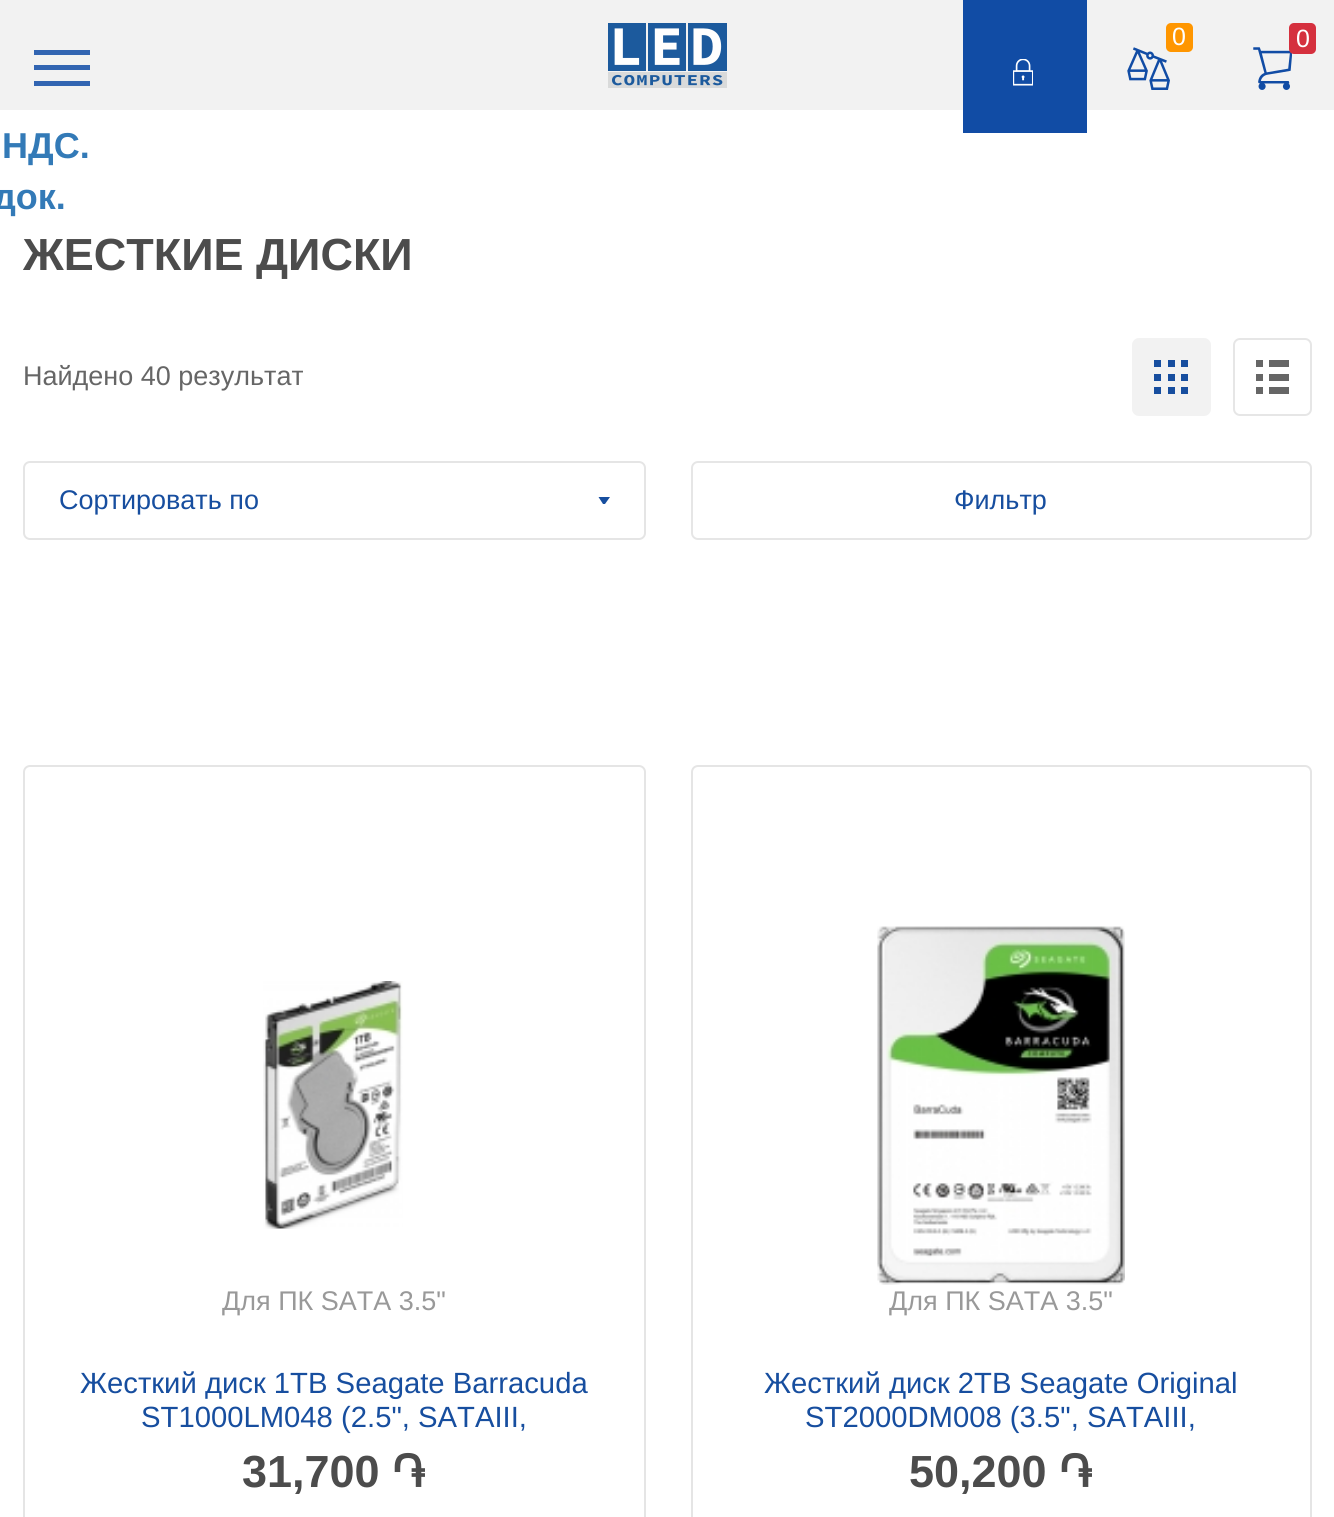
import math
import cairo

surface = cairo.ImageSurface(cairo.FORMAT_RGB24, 1334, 1517)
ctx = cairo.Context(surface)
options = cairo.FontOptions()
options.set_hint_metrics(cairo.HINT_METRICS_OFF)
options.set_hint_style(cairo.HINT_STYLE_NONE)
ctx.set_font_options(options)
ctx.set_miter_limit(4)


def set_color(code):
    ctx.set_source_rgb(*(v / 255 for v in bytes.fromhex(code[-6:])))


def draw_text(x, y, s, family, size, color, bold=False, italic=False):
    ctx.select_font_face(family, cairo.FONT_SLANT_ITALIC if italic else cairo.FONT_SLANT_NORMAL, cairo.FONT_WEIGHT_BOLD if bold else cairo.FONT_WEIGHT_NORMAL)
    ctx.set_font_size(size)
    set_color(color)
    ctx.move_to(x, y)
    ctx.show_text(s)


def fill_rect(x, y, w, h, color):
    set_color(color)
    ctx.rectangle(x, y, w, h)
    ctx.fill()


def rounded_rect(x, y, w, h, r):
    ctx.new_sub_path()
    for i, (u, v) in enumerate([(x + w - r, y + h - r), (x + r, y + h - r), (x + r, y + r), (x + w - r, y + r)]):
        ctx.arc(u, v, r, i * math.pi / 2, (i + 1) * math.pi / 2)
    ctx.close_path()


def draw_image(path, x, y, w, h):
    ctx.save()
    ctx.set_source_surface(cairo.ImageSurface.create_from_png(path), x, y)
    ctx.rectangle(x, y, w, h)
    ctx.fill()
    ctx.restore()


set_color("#ffffff")
ctx.paint()
fill_rect(0, 0, 1334, 110, "#f2f2f2")
draw_image("assets/img1.png", 608, 23, 119, 65)
fill_rect(963, 0, 124, 133, "#114ca5")
draw_image("assets/img2.png", 1013, 59, 20, 27)
draw_image("assets/img3.png", 1127, 47, 43, 43)
set_color("#ff9600")
rounded_rect(1166, 23, 27, 29, 5)
ctx.fill()
draw_text(1172, 45, "0", "Liberation Sans", 25, "#ffffff")
draw_image("assets/img4.png", 1253, 47, 39, 43)
set_color("#d5303e")
rounded_rect(1289, 23, 27, 31, 5)
ctx.fill()
draw_text(1296, 47, "0", "Liberation Sans", 25, "#ffffff")
fill_rect(34, 50, 56, 5, "#3265b2")
fill_rect(34, 65, 56, 5, "#3265b2")
fill_rect(34, 81, 56, 5, "#3265b2")
draw_text(2, 158, "НДС.", "Liberation Sans", 36, "#337ab7", bold=True)
draw_text(-7, 209, "док.", "Liberation Sans", 36, "#337ab7", bold=True)
draw_text(23, 270, "ЖЕСТКИЕ ДИСКИ", "Liberation Sans", 45, "#4c4c4c", bold=True)
draw_text(23, 385, "Найдено 40 результат", "Liberation Sans", 27, "#666666")
set_color("#f2f2f2")
rounded_rect(1132, 338, 79, 78, 7)
ctx.fill()
fill_rect(1168, 360, 7, 7, "#174e9f")
fill_rect(1154, 360, 7, 7, "#174e9f")
fill_rect(1181, 360, 7, 7, "#174e9f")
fill_rect(1168, 374, 7, 7, "#174e9f")
fill_rect(1154, 374, 7, 7, "#174e9f")
fill_rect(1181, 374, 7, 7, "#174e9f")
fill_rect(1168, 387, 7, 7, "#174e9f")
fill_rect(1154, 387, 7, 7, "#174e9f")
fill_rect(1181, 387, 7, 7, "#174e9f")
rounded_rect(1234, 339, 77, 76, 6)
set_color("#e6e6e6")
ctx.stroke()
fill_rect(1269, 360, 20, 7, "#666666")
fill_rect(1256, 360, 7, 7, "#666666")
fill_rect(1269, 374, 20, 7, "#666666")
fill_rect(1256, 374, 7, 7, "#666666")
fill_rect(1269, 387, 20, 7, "#666666")
fill_rect(1256, 387, 7, 7, "#666666")
rounded_rect(24, 462, 621, 77, 6)
set_color("#e5e5e5")
ctx.stroke()
draw_text(59, 509, "Сортировать по", "Liberation Sans", 27, "#174e9f")
ctx.new_path()
ctx.move_to(598.5, 497)
ctx.line_to(610, 497)
ctx.line_to(605, 504)
ctx.line_to(603, 504)
ctx.close_path()
ctx.fill()
rounded_rect(692, 462, 619, 77, 6)
set_color("#e6e6e6")
ctx.stroke()
draw_text(954, 509, "Фильтр", "Liberation Sans", 27, "#174e9f")
rounded_rect(24, 766, 621, 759, 6)
set_color("#e5e5e5")
ctx.stroke()
draw_image("assets/img5.png", 263, 981, 140, 248)
draw_text(222, 1310, "Для ПК SATA 3.5\"", "Liberation Sans", 27, "#999999")
draw_text(80, 1393, "Жесткий диск 1TB Seagate Barracuda", "Liberation Sans", 29.25, "#174e9f")
draw_text(141, 1427, "ST1000LM048 (2.5\", SATAIII,", "Liberation Sans", 29.25, "#174e9f")
draw_text(242, 1487, "31,700", "Liberation Sans", 45, "#4c4c4c", bold=True)
draw_text(392, 1487, "֏", "FreeSans", 45, "#4c4c4c", bold=True)
rounded_rect(692, 766, 619, 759, 6)
set_color("#e5e5e5")
ctx.stroke()
draw_image("assets/img6.png", 877, 926, 248, 359)
draw_text(889, 1310, "Для ПК SATA 3.5\"", "Liberation Sans", 27, "#999999")
draw_text(764, 1393, "Жесткий диск 2TB Seagate Original", "Liberation Sans", 29.25, "#174e9f")
draw_text(805, 1427, "ST2000DM008 (3.5\", SATAIII,", "Liberation Sans", 29.25, "#174e9f")
draw_text(909, 1487, "50,200", "Liberation Sans", 45, "#4c4c4c", bold=True)
draw_text(1059, 1487, "֏", "FreeSans", 45, "#4c4c4c", bold=True)
surface.write_to_png("output.png")
